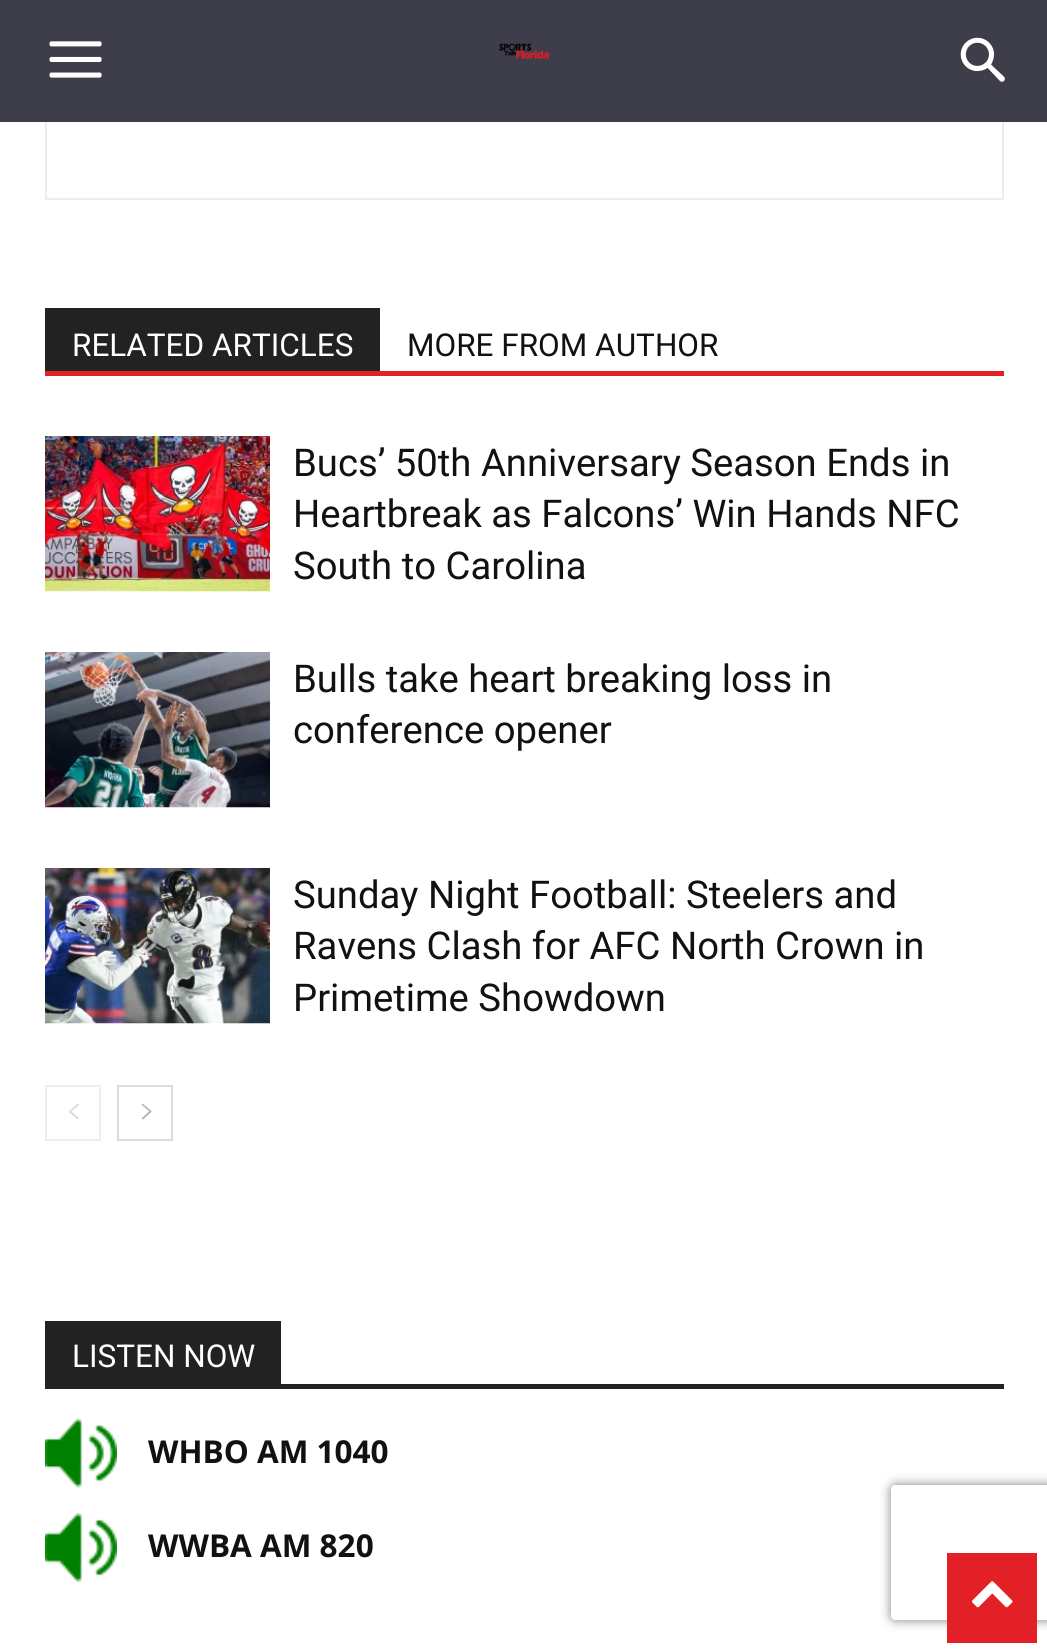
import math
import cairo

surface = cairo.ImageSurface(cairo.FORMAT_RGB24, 1047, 1650)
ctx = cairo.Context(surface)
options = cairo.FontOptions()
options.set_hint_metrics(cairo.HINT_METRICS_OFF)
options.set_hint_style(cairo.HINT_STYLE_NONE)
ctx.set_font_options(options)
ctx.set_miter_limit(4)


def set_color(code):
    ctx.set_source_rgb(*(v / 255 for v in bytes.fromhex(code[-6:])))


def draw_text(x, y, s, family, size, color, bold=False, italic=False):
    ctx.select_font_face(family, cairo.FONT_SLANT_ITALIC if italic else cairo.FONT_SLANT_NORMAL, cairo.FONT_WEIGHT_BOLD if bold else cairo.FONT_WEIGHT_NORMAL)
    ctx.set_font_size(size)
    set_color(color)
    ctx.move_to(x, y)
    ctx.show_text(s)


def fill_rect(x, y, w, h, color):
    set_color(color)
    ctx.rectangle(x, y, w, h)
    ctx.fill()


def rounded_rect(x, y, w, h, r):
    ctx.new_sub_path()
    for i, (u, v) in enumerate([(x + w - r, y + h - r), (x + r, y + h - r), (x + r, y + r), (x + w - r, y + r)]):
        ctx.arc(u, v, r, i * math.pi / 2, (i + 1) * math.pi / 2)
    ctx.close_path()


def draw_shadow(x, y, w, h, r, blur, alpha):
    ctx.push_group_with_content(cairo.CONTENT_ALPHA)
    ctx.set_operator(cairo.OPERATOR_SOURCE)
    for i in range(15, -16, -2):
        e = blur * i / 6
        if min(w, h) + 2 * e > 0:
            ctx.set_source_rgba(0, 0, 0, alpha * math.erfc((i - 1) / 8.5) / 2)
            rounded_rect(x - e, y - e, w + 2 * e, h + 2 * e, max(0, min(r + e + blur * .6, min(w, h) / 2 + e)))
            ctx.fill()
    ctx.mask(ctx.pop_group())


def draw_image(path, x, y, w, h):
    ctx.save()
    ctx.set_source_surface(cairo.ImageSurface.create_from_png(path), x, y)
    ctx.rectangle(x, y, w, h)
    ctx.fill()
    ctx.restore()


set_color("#ffffff")
ctx.paint()
ctx.rectangle(46, 33, 957, 166)
set_color("#ededed")
ctx.stroke()
fill_rect(0, 0, 1047, 122, "#3e3e4a")
draw_image("assets/img1.png", 49, 41, 53, 37)
draw_image("assets/img2.png", 499, 43, 51, 16)
draw_image("assets/img3.png", 960, 37, 45, 45)
fill_rect(45, 371, 959, 5, "#e32026")
fill_rect(45, 308, 335, 63, "#222222")
draw_text(72, 356, "RELATED ARTICLES", "Roboto", 31.5, "#ffffff")
draw_text(407, 356, "MORE FROM AUTHOR", "Roboto", 31.5, "#111111")
draw_image("assets/img4.png", 45, 436, 225, 156)
draw_text(293, 476, "Bucs’ 50th Anniversary Season Ends in", "Roboto", 38.25, "#111111")
draw_text(293, 527, "Heartbreak as Falcons’ Win Hands NFC", "Roboto", 38.25, "#111111")
draw_text(293, 579, "South to Carolina", "Roboto", 38.25, "#111111")
draw_image("assets/img5.png", 45, 652, 225, 156)
draw_text(293, 692, "Bulls take heart breaking loss in", "Roboto", 38.25, "#111111")
draw_text(293, 743, "conference opener", "Roboto", 38.25, "#111111")
draw_image("assets/img6.png", 45, 868, 225, 156)
draw_text(293, 908, "Sunday Night Football: Steelers and", "Roboto", 38.25, "#111111")
draw_text(293, 959, "Ravens Clash for AFC North Crown in", "Roboto", 38.25, "#111111")
draw_text(293, 1011, "Primetime Showdown", "Roboto", 38.25, "#111111")
ctx.rectangle(46, 1086, 54, 54)
set_color("#eeeeee")
ctx.stroke()
draw_image("assets/img7.png", 69, 1103, 10, 17)
ctx.rectangle(118, 1086, 54, 54)
set_color("#dcdcdc")
ctx.stroke()
draw_image("assets/img8.png", 141, 1103, 11, 17)
fill_rect(45, 1384, 959, 5, "#222222")
fill_rect(45, 1321, 236, 63, "#222222")
draw_text(72, 1367, "LISTEN NOW", "Roboto", 31.5, "#ffffff")
draw_image("assets/img9.png", 45, 1418, 72, 70)
draw_text(148, 1463, "WHBO AM 1040", "Open Sans", 31.5, "#111111", bold=True)
draw_image("assets/img10.png", 45, 1513, 72, 69)
draw_text(148, 1557, "WWBA AM 820", "Open Sans", 31.5, "#111111", bold=True)
ctx.save()
ctx.set_fill_rule(cairo.FILL_RULE_EVEN_ODD)
ctx.new_path()
ctx.move_to(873, 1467)
ctx.line_to(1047, 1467)
ctx.line_to(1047, 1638)
ctx.line_to(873, 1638)
ctx.close_path()
ctx.move_to(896, 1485)
ctx.line_to(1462, 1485)
ctx.curve_to(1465, 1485, 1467, 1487, 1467, 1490)
ctx.line_to(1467, 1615)
ctx.curve_to(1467, 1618, 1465, 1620, 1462, 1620)
ctx.line_to(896, 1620)
ctx.curve_to(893, 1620, 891, 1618, 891, 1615)
ctx.line_to(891, 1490)
ctx.curve_to(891, 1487, 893, 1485, 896, 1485)
ctx.close_path()
ctx.clip()
set_color("#808080")
draw_shadow(891, 1485, 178, 135, 5, 5.5, 1)
ctx.restore()
fill_rect(947, 1553, 90, 90, "#e32026")
draw_image("assets/img11.png", 972, 1581, 41, 27)
surface.write_to_png("output.png")
